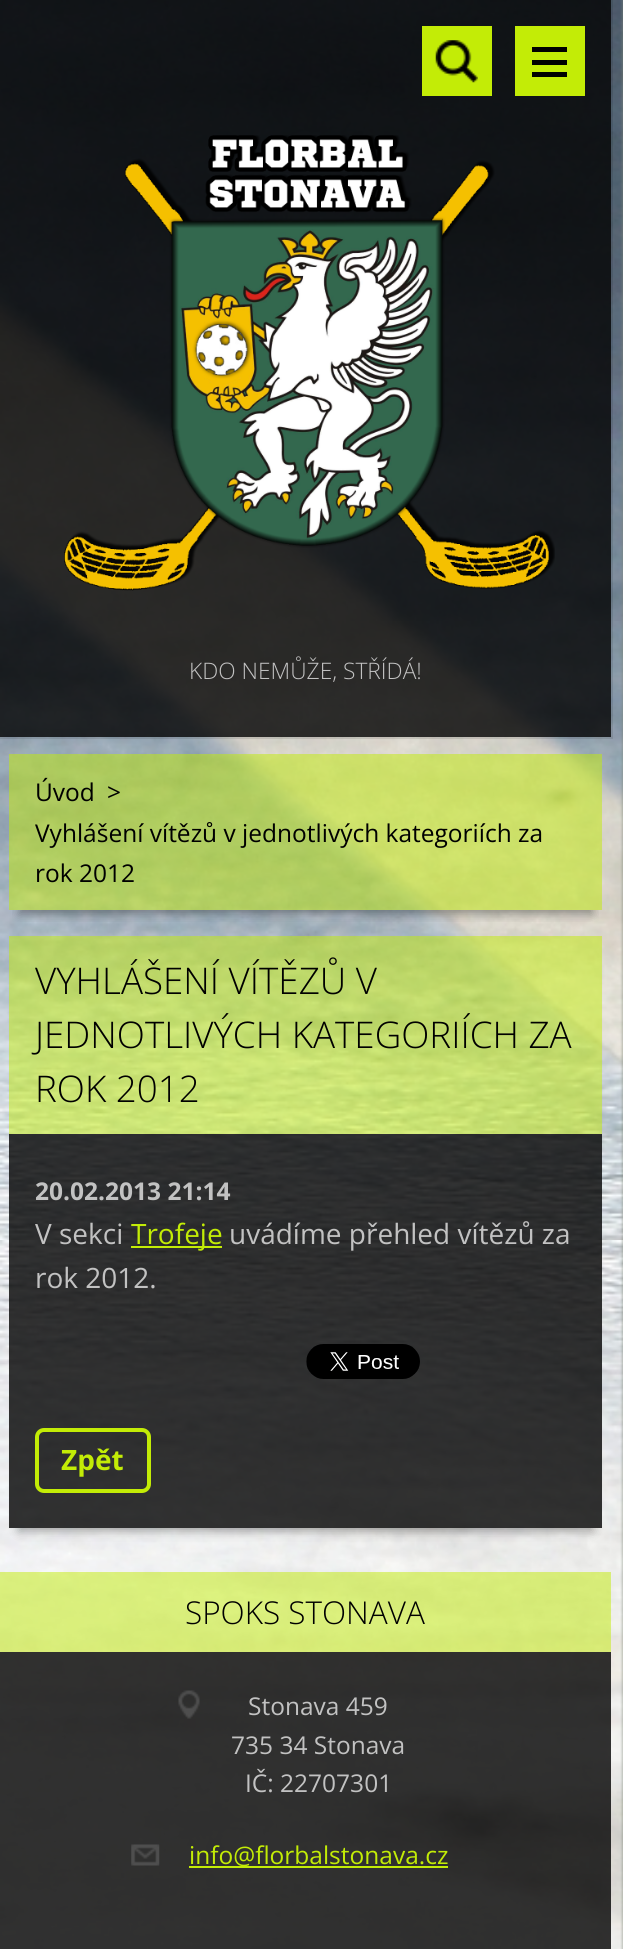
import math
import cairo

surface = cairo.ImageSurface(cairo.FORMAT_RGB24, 623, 1949)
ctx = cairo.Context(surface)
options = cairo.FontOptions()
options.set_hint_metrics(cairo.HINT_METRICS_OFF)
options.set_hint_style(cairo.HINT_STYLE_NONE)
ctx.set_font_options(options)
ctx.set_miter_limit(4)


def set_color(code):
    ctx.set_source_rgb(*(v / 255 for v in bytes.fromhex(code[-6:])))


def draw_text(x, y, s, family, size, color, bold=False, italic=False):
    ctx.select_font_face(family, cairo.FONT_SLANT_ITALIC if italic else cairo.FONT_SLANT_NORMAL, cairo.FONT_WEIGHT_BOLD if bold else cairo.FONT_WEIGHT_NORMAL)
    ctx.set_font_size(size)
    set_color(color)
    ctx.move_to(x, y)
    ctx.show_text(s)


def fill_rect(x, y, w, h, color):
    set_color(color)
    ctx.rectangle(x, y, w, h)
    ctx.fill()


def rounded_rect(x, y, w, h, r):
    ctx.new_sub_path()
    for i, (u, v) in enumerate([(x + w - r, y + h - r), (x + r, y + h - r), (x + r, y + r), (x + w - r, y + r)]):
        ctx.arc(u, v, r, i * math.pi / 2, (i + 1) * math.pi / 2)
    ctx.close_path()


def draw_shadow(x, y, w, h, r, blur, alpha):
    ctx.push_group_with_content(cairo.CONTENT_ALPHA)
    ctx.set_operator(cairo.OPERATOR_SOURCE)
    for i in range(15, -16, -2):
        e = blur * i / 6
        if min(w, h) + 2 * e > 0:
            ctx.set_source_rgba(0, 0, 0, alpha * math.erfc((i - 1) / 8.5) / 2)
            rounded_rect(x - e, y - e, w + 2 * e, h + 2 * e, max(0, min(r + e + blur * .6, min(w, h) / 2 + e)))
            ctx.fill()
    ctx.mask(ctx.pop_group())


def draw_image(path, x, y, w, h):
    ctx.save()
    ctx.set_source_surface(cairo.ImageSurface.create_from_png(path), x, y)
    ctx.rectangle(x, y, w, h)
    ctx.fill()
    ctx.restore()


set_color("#7b8577")
ctx.paint()
draw_image("assets/img1.png", 0, 0, 623, 1949)
ctx.rectangle(-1, -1, 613, 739)
ctx.set_source_rgba(0, 0, 0, 0.1)
ctx.stroke()
ctx.set_source_rgba(0, 0, 0, 0.8)
ctx.rectangle(0, 0, 611, 649)
ctx.fill()
draw_image("assets/img2.png", 64, 135, 491, 456)
fill_rect(422, 26, 70, 70, "#c3ec06")
draw_image("assets/img3.png", 435, 40, 43, 43)
fill_rect(515, 26, 70, 70, "#c3ec06")
fill_rect(532, 47, 35, 5, "#000000")
fill_rect(532, 60, 35, 5, "#000000")
fill_rect(532, 72, 35, 5, "#000000")
ctx.set_source_rgba(0, 0, 0, 0.8)
ctx.rectangle(0, 649, 611, 88)
ctx.fill()
draw_text(189, 679, "KDO NEMŮŽE, STŘÍDÁ!", "Open Sans Light", 22.75, "#c2c2c2")
ctx.save()
ctx.rectangle(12, 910, 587, 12)
ctx.clip()
set_color("#000000")
draw_shadow(19, 779, 573, 135, 0, 5, 0.35)
ctx.restore()
ctx.set_source_rgba(0.765, 0.925, 0.024, 0.5)
ctx.rectangle(9, 754, 593, 156)
ctx.fill()
draw_text(35, 801, "Úvod", "Open Sans", 24.5, "#000000")
draw_text(107, 801, ">", "Open Sans", 24.5, "#000000")
draw_text(35, 842, "Vyhlášení vítězů v jednotlivých kategoriích za", "Open Sans", 24.5, "#000000")
draw_text(35, 882, "rok 2012", "Open Sans", 24.5, "#000000")
ctx.save()
ctx.set_fill_rule(cairo.FILL_RULE_EVEN_ODD)
ctx.new_path()
ctx.move_to(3, 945)
ctx.line_to(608, 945)
ctx.line_to(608, 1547)
ctx.line_to(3, 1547)
ctx.close_path()
ctx.move_to(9, 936)
ctx.line_to(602, 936)
ctx.line_to(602, 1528)
ctx.line_to(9, 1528)
ctx.close_path()
ctx.clip()
set_color("#000000")
draw_shadow(19, 961, 573, 570, 0, 5, 0.35)
ctx.restore()
ctx.set_source_rgba(0.765, 0.925, 0.024, 0.5)
ctx.rectangle(9, 936, 593, 198)
ctx.fill()
draw_text(35, 994, "VYHLÁŠENÍ VÍTĚZŮ V", "Open Sans Light", 36.75, "#000000")
draw_text(35, 1048, "JEDNOTLIVÝCH KATEGORIÍCH ZA", "Open Sans Light", 36.75, "#000000")
draw_text(35, 1102, "ROK 2012", "Open Sans Light", 36.75, "#000000")
ctx.set_source_rgba(0, 0, 0, 0.8)
ctx.rectangle(9, 1134, 593, 210)
ctx.fill()
draw_text(35, 1200, "20.02.2013 21:14", "Open Sans", 24.5, "#c2c2c2", bold=True)
draw_text(35, 1244, "V sekci", "Open Sans", 28, "#c2c2c2")
fill_rect(131, 1246, 91, 2, "#c3ec06")
draw_text(131, 1244, "Trofeje", "Open Sans", 28, "#c3ec06")
draw_text(229, 1244, "uvádíme přehled vítězů za", "Open Sans", 28, "#c2c2c2")
draw_text(35, 1288, "rok 2012.", "Open Sans", 28, "#c2c2c2")
ctx.set_source_rgba(0, 0, 0, 0.8)
ctx.rectangle(9, 1344, 593, 184)
ctx.fill()
draw_image("assets/img4.png", 306, 1344, 114, 35)
rounded_rect(37, 1430, 112, 61, 7)
set_color("#c3ec06")
ctx.set_line_width(4)
ctx.stroke()
draw_text(61, 1470, "Zpět", "Open Sans", 28, "#c3ec06", bold=True)
ctx.set_source_rgba(0.765, 0.925, 0.024, 0.5)
ctx.rectangle(0, 1572, 611, 80)
ctx.fill()
draw_text(185, 1624, "SPOKS STONAVA", "Open Sans Light", 31.5, "#000000")
ctx.set_source_rgba(0, 0, 0, 0.8)
ctx.rectangle(0, 1652, 611, 233)
ctx.fill()
draw_image("assets/img5.png", 178, 1690, 22, 29)
draw_text(248, 1715, "Stonava 459", "Open Sans", 24.5, "#c2c2c2")
draw_text(231, 1754, "735 34 Stonava", "Open Sans", 24.5, "#c2c2c2")
draw_text(245, 1792, "IČ: 22707301", "Open Sans", 24.5, "#c2c2c2")
draw_image("assets/img6.png", 131, 1844, 29, 22)
fill_rect(189, 1866, 259, 2, "#c3ec06")
draw_text(189, 1864, "info@florbalstonava.cz", "Open Sans", 24.5, "#c3ec06")
ctx.set_source_rgba(0, 0, 0, 0.8)
ctx.rectangle(0, 1885, 611, 35)
ctx.fill()
ctx.rectangle(0, 1920, 611, 29)
ctx.fill()
surface.write_to_png("output.png")
